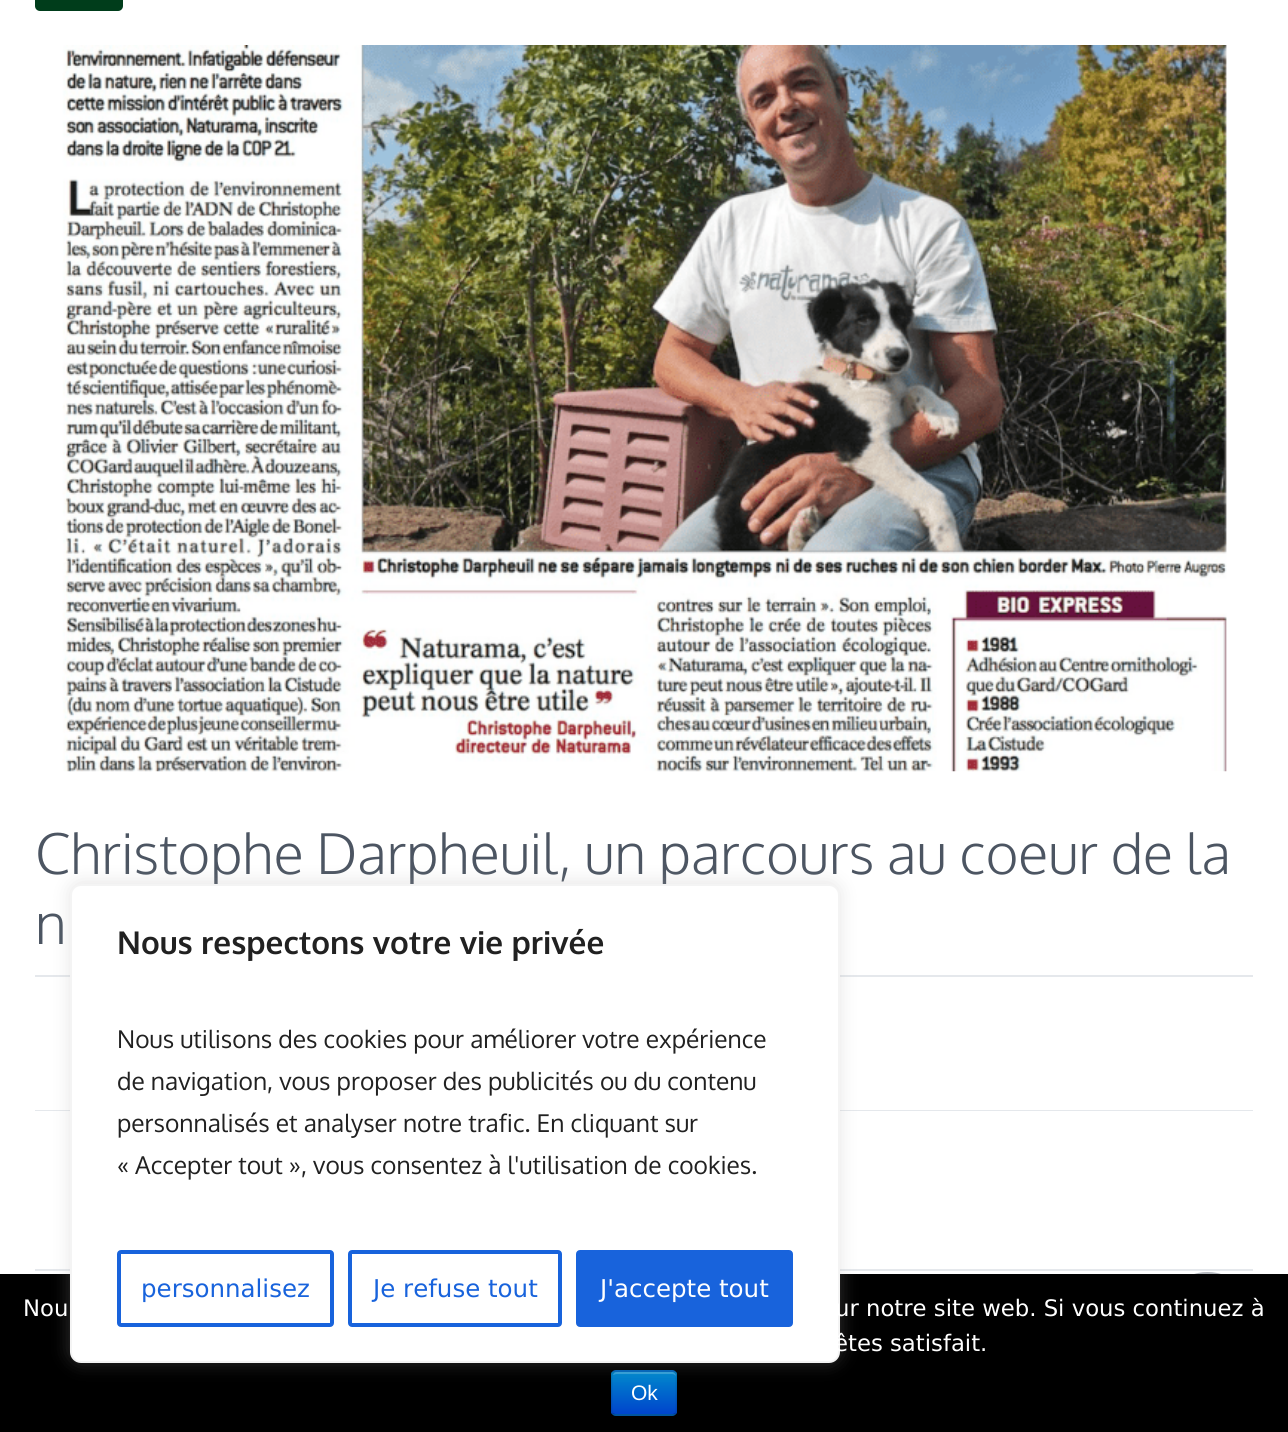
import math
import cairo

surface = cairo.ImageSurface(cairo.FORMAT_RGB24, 1288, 1432)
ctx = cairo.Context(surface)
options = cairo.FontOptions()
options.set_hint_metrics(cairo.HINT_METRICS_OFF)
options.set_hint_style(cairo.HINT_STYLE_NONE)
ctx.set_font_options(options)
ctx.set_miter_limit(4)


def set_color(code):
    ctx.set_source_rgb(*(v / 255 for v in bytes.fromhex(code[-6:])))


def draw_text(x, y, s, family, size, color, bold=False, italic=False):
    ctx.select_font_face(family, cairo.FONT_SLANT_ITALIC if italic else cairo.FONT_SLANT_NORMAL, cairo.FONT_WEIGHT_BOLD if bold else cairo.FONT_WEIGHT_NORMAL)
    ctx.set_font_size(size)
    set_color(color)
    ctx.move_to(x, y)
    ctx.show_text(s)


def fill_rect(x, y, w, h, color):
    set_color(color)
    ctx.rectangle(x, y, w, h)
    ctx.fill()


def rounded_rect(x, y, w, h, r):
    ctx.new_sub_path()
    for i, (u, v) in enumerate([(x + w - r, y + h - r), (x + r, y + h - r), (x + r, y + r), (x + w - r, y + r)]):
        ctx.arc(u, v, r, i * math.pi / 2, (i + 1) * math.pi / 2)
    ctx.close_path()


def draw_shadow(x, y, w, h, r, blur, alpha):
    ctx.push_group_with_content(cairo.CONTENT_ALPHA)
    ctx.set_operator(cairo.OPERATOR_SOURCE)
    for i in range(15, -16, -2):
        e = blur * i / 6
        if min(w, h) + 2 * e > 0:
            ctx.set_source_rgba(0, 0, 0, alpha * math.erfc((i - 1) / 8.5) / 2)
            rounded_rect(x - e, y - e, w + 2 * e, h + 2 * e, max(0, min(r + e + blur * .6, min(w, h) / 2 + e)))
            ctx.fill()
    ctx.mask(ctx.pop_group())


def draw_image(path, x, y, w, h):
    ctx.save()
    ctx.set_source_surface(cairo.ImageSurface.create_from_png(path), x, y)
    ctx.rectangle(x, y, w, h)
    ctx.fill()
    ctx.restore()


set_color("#ffffff")
ctx.paint()
set_color("#003d1b")
rounded_rect(35, -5, 88, 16, 5)
ctx.fill()
fill_rect(35, 1110, 1218, 1, "#e5e8ec")
draw_image("assets/img1.png", 62, 45, 1165, 727)
draw_text(35, 874, "Christophe Darpheuil, un parcours au coeur de la", "Oxygen Light", 56, "#4c5562")
draw_text(35, 944, "n", "Oxygen Light", 56, "#4c5562")
fill_rect(35, 975, 1218, 2, "#e5e8ec")
fill_rect(35, 1269, 1218, 2, "#e5e8ec")
set_color("#a6aab1")
ctx.new_path()
ctx.arc(1207.5, 1317.5, 45.5, 0, 2 * math.pi)
ctx.fill()
ctx.arc(1207.5, 1317.5, 44.5, 0, 2 * math.pi)
ctx.set_source_rgba(1, 1, 1, 0.15)
ctx.stroke()
fill_rect(0, 1274, 1288, 158, "#000000")
set_color("#006dcc")
rounded_rect(611, 1370, 66, 46, 5)
ctx.fill()
ctx.save()
rounded_rect(611, 1370, 66, 46, 5)
ctx.clip()
gradient = cairo.LinearGradient(644, 1372, 644, 1414)
gradient.add_color_stop_rgba(0, 0, 0.533, 0.8, 1)
gradient.add_color_stop_rgba(1, 0, 0.267, 0.8, 1)
ctx.set_source(gradient)
ctx.rectangle(611, 1372, 66, 42)
ctx.fill()
ctx.restore()
ctx.set_source_rgba(1, 1, 1, 0.2)
ctx.new_path()
ctx.move_to(616, 1374)
ctx.line_to(672, 1374)
ctx.curve_to(674, 1374, 676, 1375, 676, 1377)
ctx.line_to(676, 1376)
ctx.curve_to(676, 1374, 674, 1372, 672, 1372)
ctx.line_to(617, 1372)
ctx.curve_to(615, 1372, 614, 1373, 613, 1375)
ctx.close_path()
ctx.fill()
ctx.new_path()
ctx.move_to(675, 1413.5)
ctx.curve_to(674.5, 1414.5, 673, 1415, 672, 1415)
ctx.line_to(616, 1415)
ctx.curve_to(615, 1415, 613.5, 1414.5, 613, 1413.5)
ctx.set_source_rgba(0, 0, 0, 0.25)
ctx.set_line_width(1.8)
ctx.stroke()
ctx.new_path()
ctx.move_to(613, 1413.5)
ctx.curve_to(612, 1413, 611.5, 1411.5, 611.5, 1410.5)
ctx.line_to(611.5, 1375.5)
ctx.curve_to(611.5, 1374.5, 612, 1373, 613, 1372.5)
ctx.curve_to(613.5, 1371.5, 615, 1371, 616, 1371)
ctx.line_to(672, 1371)
ctx.curve_to(673, 1371, 674.5, 1371.5, 675, 1372.5)
ctx.curve_to(676, 1373, 676.5, 1374.5, 676.5, 1375.5)
ctx.line_to(676.5, 1410.5)
ctx.curve_to(676.5, 1411.5, 676, 1413, 675, 1413.5)
ctx.set_source_rgba(0, 0, 0, 0.1)
ctx.stroke()
set_color("#acabab")
draw_shadow(70, 882, 770, 480, 11, 9, 0.3)
set_color("#ffffff")
rounded_rect(71, 885, 768, 477, 10)
ctx.fill_preserve()
set_color("#f4f4f4")
ctx.set_line_width(2)
ctx.stroke()
draw_text(117, 954, "Nous respectons votre vie privée", "Oxygen", 31.5, "#212121", bold=True)
draw_text(117, 1048, "Nous utilisons des cookies pour améliorer votre expérience", "Oxygen", 24.5, "#212121")
draw_text(117, 1090, "de navigation, vous proposer des publicités ou du contenu", "Oxygen", 24.5, "#212121")
draw_text(117, 1132, "personnalisés et analyser notre trafic. En cliquant sur", "Oxygen", 24.5, "#212121")
draw_text(117, 1174, "« Accepter tout », vous consentez à l'utilisation de cookies.", "Oxygen", 24.5, "#212121")
rounded_rect(119, 1252, 213, 73, 2)
set_color("#1863dc")
ctx.set_line_width(4)
ctx.stroke()
draw_text(141, 1297, "personnalisez", "DejaVu Sans", 24.5, "#1863dc")
rounded_rect(350, 1252, 210, 73, 2)
ctx.stroke()
draw_text(373, 1297, "Je refuse tout", "DejaVu Sans", 24.5, "#1863dc")
rounded_rect(578, 1252, 213, 73, 2)
ctx.fill_preserve()
ctx.stroke()
draw_text(600, 1297, "J'accepte tout", "DejaVu Sans", 24.5, "#ffffff")
draw_text(23, 1316, "Nou", "DejaVu Sans", 22.75, "#ffffff")
draw_text(835, 1316, "ur notre site web. Si vous continuez à", "DejaVu Sans", 22.75, "#ffffff")
draw_text(834, 1351, "êtes satisfait.", "DejaVu Sans", 22.75, "#ffffff")
draw_text(631, 1400, "Ok", "Liberation Sans", 21, "#ffffff")
surface.write_to_png("output.png")
